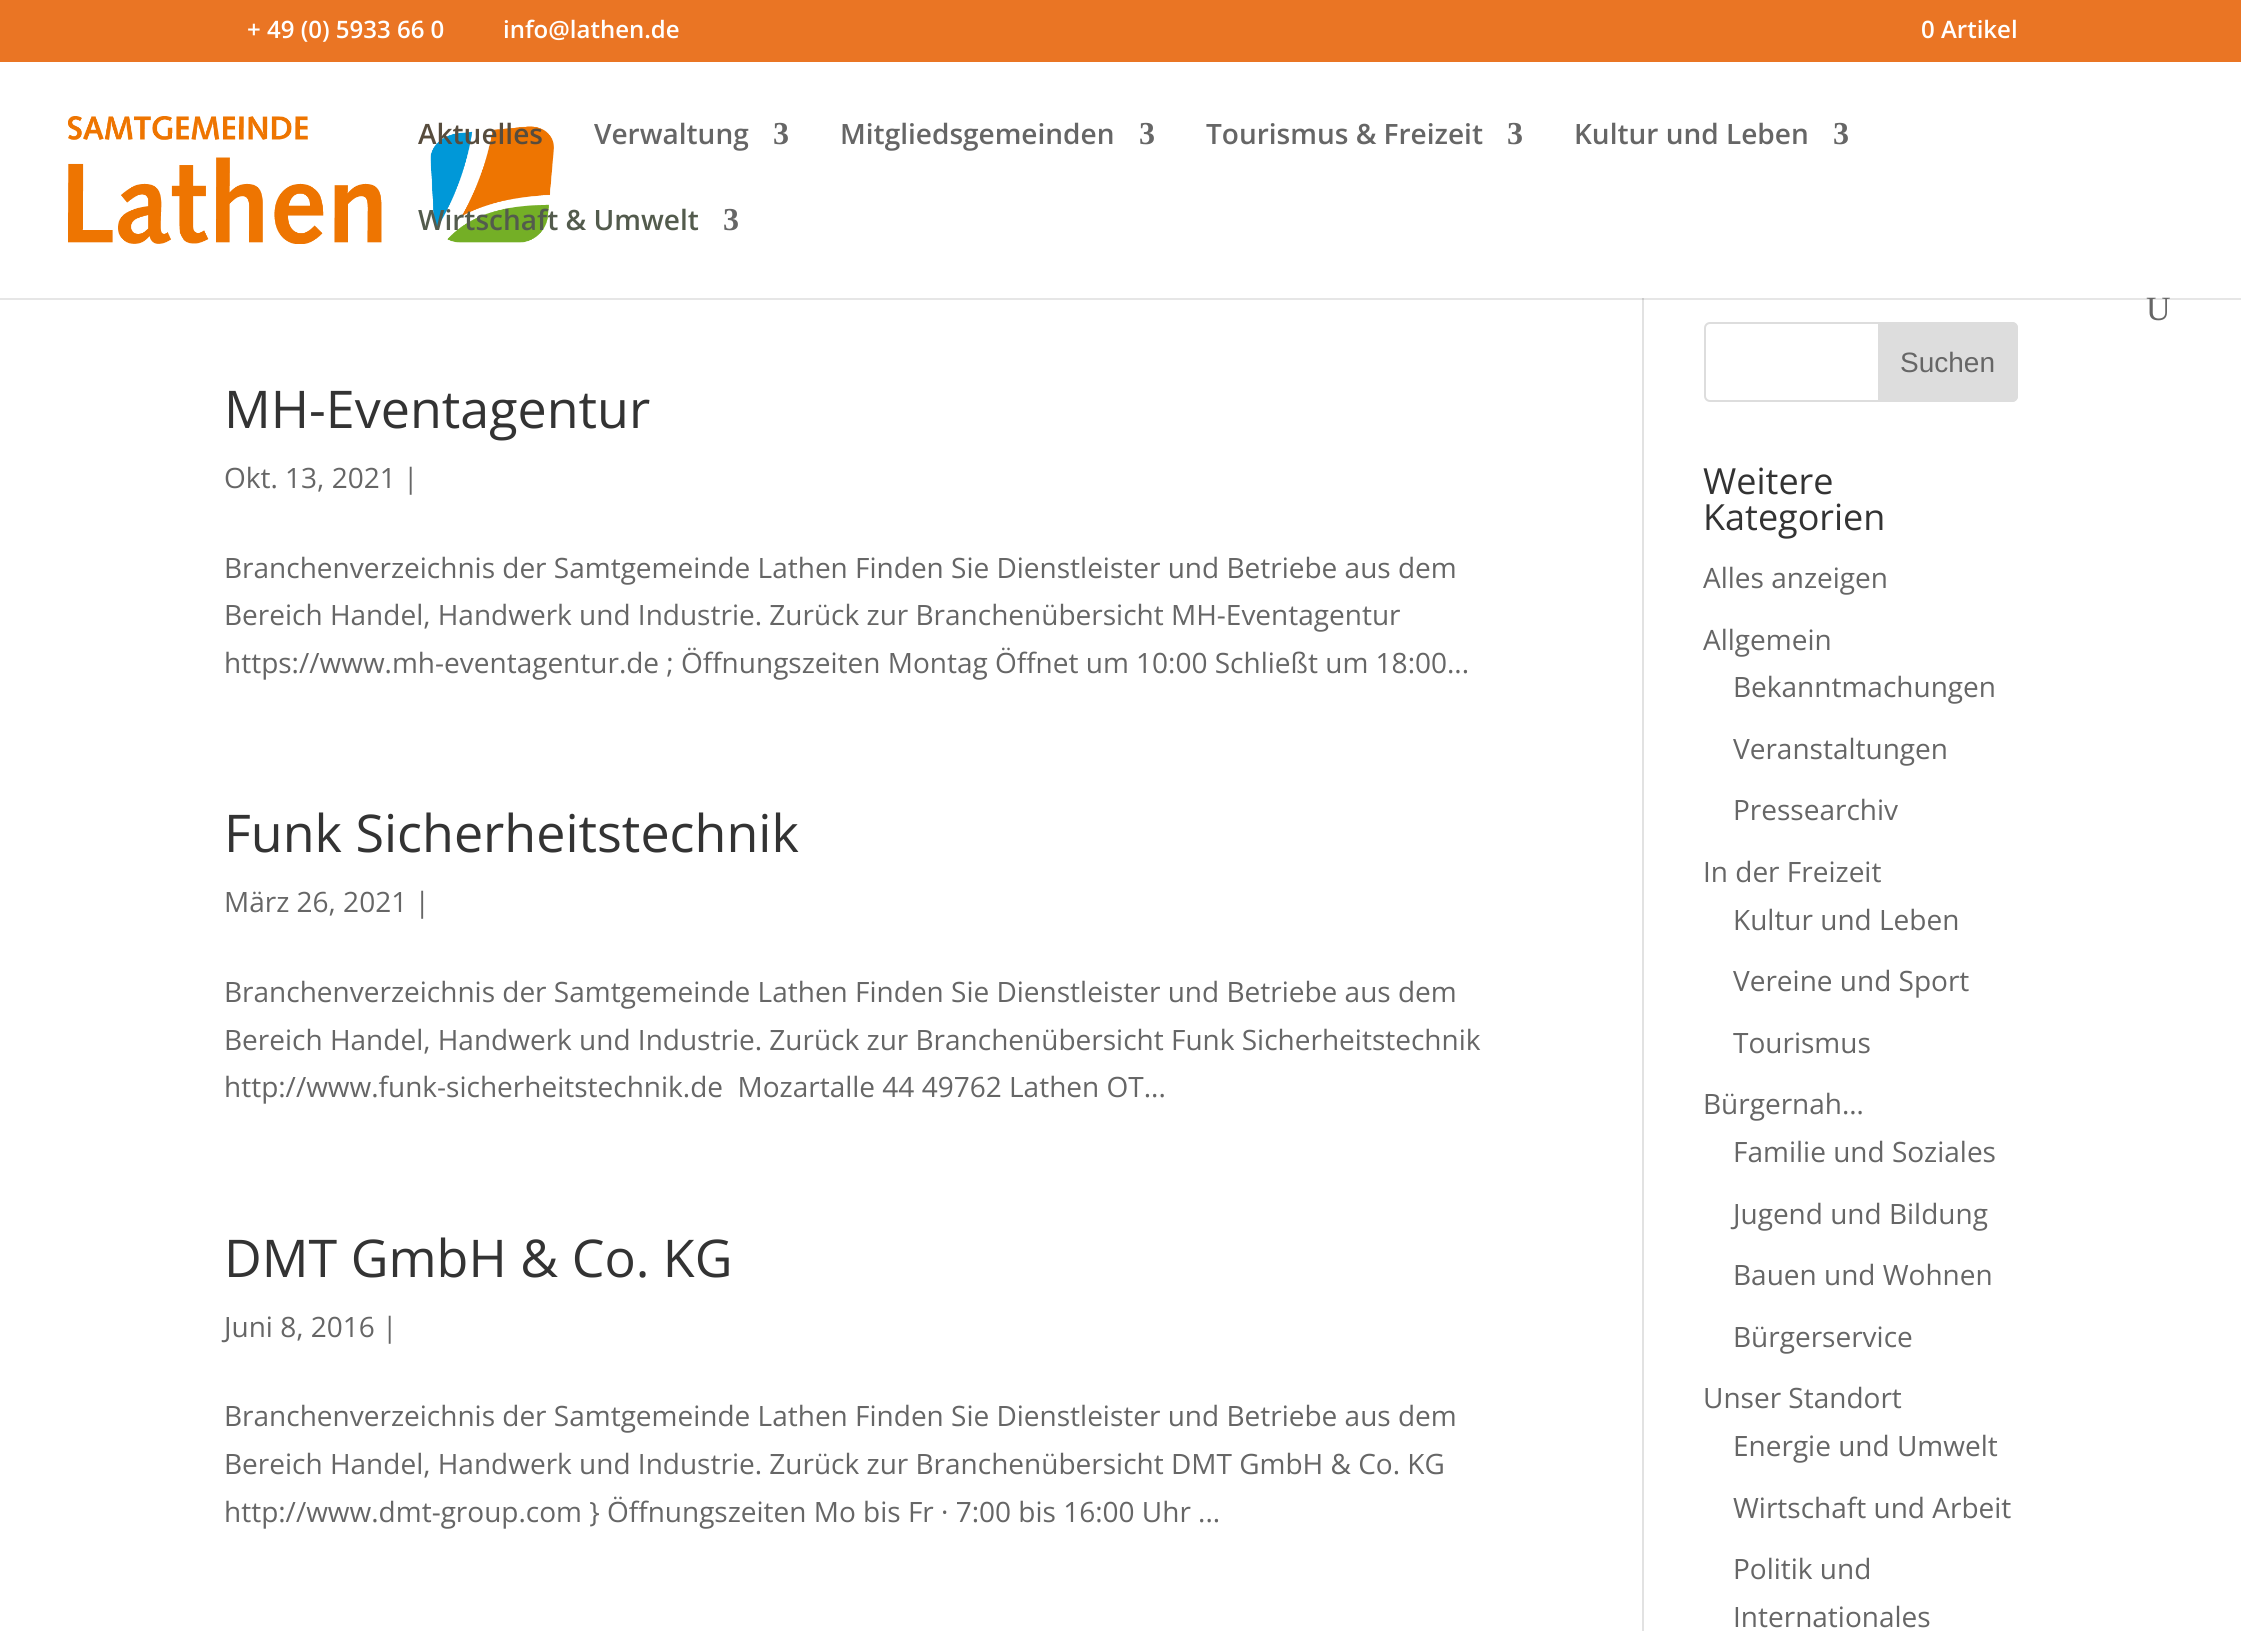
import math
import cairo

surface = cairo.ImageSurface(cairo.FORMAT_RGB24, 2241, 1631)
ctx = cairo.Context(surface)
options = cairo.FontOptions()
options.set_hint_metrics(cairo.HINT_METRICS_OFF)
options.set_hint_style(cairo.HINT_STYLE_NONE)
ctx.set_font_options(options)
ctx.set_miter_limit(4)


def set_color(code):
    ctx.set_source_rgb(*(v / 255 for v in bytes.fromhex(code[-6:])))


def draw_text(x, y, s, family, size, color, bold=False, italic=False):
    ctx.select_font_face(family, cairo.FONT_SLANT_ITALIC if italic else cairo.FONT_SLANT_NORMAL, cairo.FONT_WEIGHT_BOLD if bold else cairo.FONT_WEIGHT_NORMAL)
    ctx.set_font_size(size)
    set_color(color)
    ctx.move_to(x, y)
    ctx.show_text(s)


def fill_rect(x, y, w, h, color):
    set_color(color)
    ctx.rectangle(x, y, w, h)
    ctx.fill()


def rounded_rect(x, y, w, h, r):
    ctx.new_sub_path()
    for i, (u, v) in enumerate([(x + w - r, y + h - r), (x + r, y + h - r), (x + r, y + r), (x + w - r, y + r)]):
        ctx.arc(u, v, r, i * math.pi / 2, (i + 1) * math.pi / 2)
    ctx.close_path()


def draw_image(path, x, y, w, h):
    ctx.save()
    ctx.set_source_surface(cairo.ImageSurface.create_from_png(path), x, y)
    ctx.rectangle(x, y, w, h)
    ctx.fill()
    ctx.restore()


set_color("#ffffff")
ctx.paint()
fill_rect(0, 298, 2241, 2, "#e6e6e6")
fill_rect(0, 0, 2241, 62, "#ea7524")
draw_text(247, 38, "+ 49 (0) 5933 66 0", "Open Sans SemiBold", 24, "#ffffff")
draw_text(503, 38, "info@lathen.de", "Open Sans SemiBold", 24, "#ffffff")
draw_text(1921, 38, "0 Artikel", "Open Sans SemiBold", 24, "#ffffff")
draw_image("assets/img1.png", 68, 116, 486, 128)
draw_text(418, 144, "Aktuelles", "Open Sans SemiBold", 28, "#574c3d")
draw_text(594, 144, "Verwaltung", "Open Sans SemiBold", 28, "#666666")
draw_text(773, 144, "3", "Liberation Serif", 32, "#666666", bold=True)
draw_text(840, 144, "Mitgliedsgemeinden", "Open Sans SemiBold", 28, "#666666")
draw_text(1139, 144, "3", "Liberation Serif", 32, "#666666", bold=True)
draw_text(1206, 144, "Tourismus & Freizeit", "Open Sans SemiBold", 28, "#666666")
draw_text(1507, 144, "3", "Liberation Serif", 32, "#666666", bold=True)
draw_text(1574, 144, "Kultur und Leben", "Open Sans SemiBold", 28, "#666666")
draw_text(1833, 144, "3", "Liberation Serif", 32, "#666666", bold=True)
draw_text(418, 230, "Wirtschaft & Umwelt", "Open Sans SemiBold", 28, "#535b4d")
draw_text(723, 230, "3", "Liberation Serif", 32, "#666666", bold=True)
draw_text(2146, 320, "U", "Liberation Serif", 34, "#666666")
fill_rect(1642, 300, 2, 1331, "#e2e2e2")
fill_rect(1642, 298, 2, 2, "#cbcbcb")
draw_text(224, 428, "MH-Eventagentur", "Open Sans", 52, "#333333")
draw_text(224, 488, "Okt. 13, 2021 |", "Open Sans", 28, "#666666")
draw_text(224, 578, "Branchenverzeichnis der Samtgemeinde Lathen Finden Sie Dienstleister und Betriebe aus dem", "Open Sans", 28, "#666666")
draw_text(224, 625, "Bereich Handel, Handwerk und Industrie. Zurück zur Branchenübersicht MH-Eventagentur", "Open Sans", 28, "#666666")
draw_text(224, 673, "https://www.mh-eventagentur.de ; Öffnungszeiten Montag Öffnet um 10:00 Schließt um 18:00...", "Open Sans", 28, "#666666")
draw_text(224, 852, "Funk Sicherheitstechnik", "Open Sans", 52, "#333333")
draw_text(224, 912, "März 26, 2021 |", "Open Sans", 28, "#666666")
draw_text(224, 1002, "Branchenverzeichnis der Samtgemeinde Lathen Finden Sie Dienstleister und Betriebe aus dem", "Open Sans", 28, "#666666")
draw_text(224, 1050, "Bereich Handel, Handwerk und Industrie. Zurück zur Branchenübersicht Funk Sicherheitstechnik", "Open Sans", 28, "#666666")
draw_text(224, 1097, "http://www.funk-sicherheitstechnik.de  Mozartalle 44 49762 Lathen OT...", "Open Sans", 28, "#666666")
draw_text(224, 1277, "DMT GmbH & Co. KG", "Open Sans", 52, "#333333")
draw_text(224, 1337, "Juni 8, 2016 |", "Open Sans", 28, "#666666")
draw_text(224, 1426, "Branchenverzeichnis der Samtgemeinde Lathen Finden Sie Dienstleister und Betriebe aus dem", "Open Sans", 28, "#666666")
draw_text(224, 1474, "Bereich Handel, Handwerk und Industrie. Zurück zur Branchenübersicht DMT GmbH & Co. KG", "Open Sans", 28, "#666666")
draw_text(224, 1522, "http://www.dmt-group.com } Öffnungszeiten Mo bis Fr · 7:00 bis 16:00 Uhr ...", "Open Sans", 28, "#666666")
rounded_rect(1705, 323, 312, 78, 5)
set_color("#dddddd")
ctx.stroke()
ctx.new_path()
ctx.move_to(1879, 323)
ctx.line_to(2012, 323)
ctx.curve_to(2015, 323, 2017, 325, 2017, 328)
ctx.line_to(2017, 396)
ctx.curve_to(2017, 399, 2015, 401, 2012, 401)
ctx.line_to(1879, 401)
ctx.close_path()
ctx.fill_preserve()
ctx.stroke()
draw_text(1900, 372, "Suchen", "Liberation Sans", 28, "#666666")
draw_text(1703, 494, "Weitere", "Open Sans", 36, "#333333")
draw_text(1703, 530, "Kategorien", "Open Sans", 36, "#333333")
draw_text(1703, 588, "Alles anzeigen", "Open Sans", 28, "#666666")
draw_text(1703, 650, "Allgemein", "Open Sans", 28, "#666666")
draw_text(1733, 697, "Bekanntmachungen", "Open Sans", 28, "#666666")
draw_text(1733, 759, "Veranstaltungen", "Open Sans", 28, "#666666")
draw_text(1733, 820, "Pressearchiv", "Open Sans", 28, "#666666")
draw_text(1703, 882, "In der Freizeit", "Open Sans", 28, "#666666")
draw_text(1733, 930, "Kultur und Leben", "Open Sans", 28, "#666666")
draw_text(1733, 991, "Vereine und Sport", "Open Sans", 28, "#666666")
draw_text(1733, 1053, "Tourismus", "Open Sans", 28, "#666666")
draw_text(1703, 1114, "Bürgernah…", "Open Sans", 28, "#666666")
draw_text(1733, 1162, "Familie und Soziales", "Open Sans", 28, "#666666")
draw_text(1733, 1224, "Jugend und Bildung", "Open Sans", 28, "#666666")
draw_text(1733, 1285, "Bauen und Wohnen", "Open Sans", 28, "#666666")
draw_text(1733, 1347, "Bürgerservice", "Open Sans", 28, "#666666")
draw_text(1703, 1408, "Unser Standort", "Open Sans", 28, "#666666")
draw_text(1733, 1456, "Energie und Umwelt", "Open Sans", 28, "#666666")
draw_text(1733, 1518, "Wirtschaft und Arbeit", "Open Sans", 28, "#666666")
draw_text(1733, 1579, "Politik und", "Open Sans", 28, "#666666")
draw_text(1733, 1627, "Internationales", "Open Sans", 28, "#666666")
surface.write_to_png("output.png")
